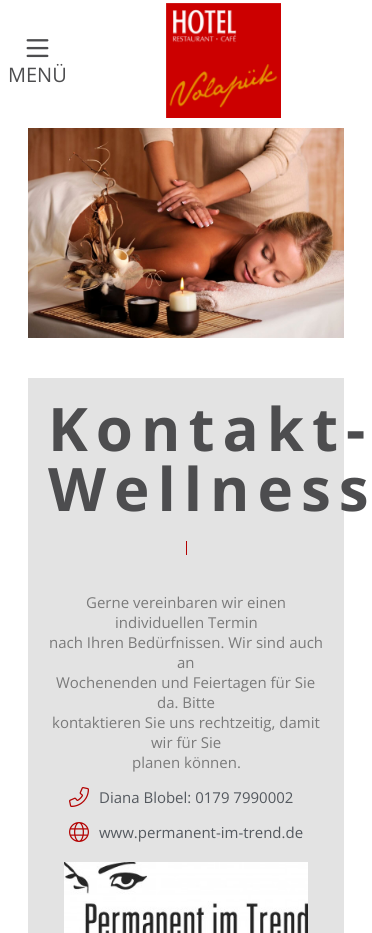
import math
import cairo

surface = cairo.ImageSurface(cairo.FORMAT_RGB24, 372, 933)
ctx = cairo.Context(surface)
options = cairo.FontOptions()
options.set_hint_metrics(cairo.HINT_METRICS_OFF)
options.set_hint_style(cairo.HINT_STYLE_NONE)
ctx.set_font_options(options)
ctx.set_miter_limit(4)


def set_color(code):
    ctx.set_source_rgb(*(v / 255 for v in bytes.fromhex(code[-6:])))


def draw_text(x, y, s, family, size, color, bold=False, italic=False):
    ctx.select_font_face(family, cairo.FONT_SLANT_ITALIC if italic else cairo.FONT_SLANT_NORMAL, cairo.FONT_WEIGHT_BOLD if bold else cairo.FONT_WEIGHT_NORMAL)
    ctx.set_font_size(size)
    set_color(color)
    ctx.move_to(x, y)
    ctx.show_text(s)


def draw_spaced(x, y, s, letter, word):
    ctx.move_to(x, y)
    for ch in s:
        ctx.show_text(ch)
        ctx.rel_move_to(letter + word * (ch == ' '), 0)


def fill_rect(x, y, w, h, color):
    set_color(color)
    ctx.rectangle(x, y, w, h)
    ctx.fill()


def draw_image(path, x, y, w, h):
    ctx.save()
    ctx.set_source_surface(cairo.ImageSurface.create_from_png(path), x, y)
    ctx.rectangle(x, y, w, h)
    ctx.fill()
    ctx.restore()


set_color("#ffffff")
ctx.paint()
draw_image("assets/img1.png", 26, 39, 23, 19)
draw_text(8, 82, "MENÜ", "Open Sans", 20, "#4d4d4f")
draw_image("assets/img2.png", 166, 3, 115, 115)
draw_image("assets/img3.png", 28, 128, 316, 210)
fill_rect(28, 378, 316, 555, "#e3e3e3")
ctx.select_font_face("Open Sans", cairo.FONT_SLANT_NORMAL, cairo.FONT_WEIGHT_BOLD)
ctx.set_font_size(60)
set_color("#4d4d4f")
draw_spaced(48, 451, "Kontakt-", 8, 0)
draw_spaced(48, 511, "Wellness", 8, 0)
fill_rect(186, 541, 1, 14, "#b30101")
draw_text(86, 608, "Gerne vereinbaren wir einen", "Open Sans", 15, "#7a7a7a")
draw_text(115, 628, "individuellen Termin", "Open Sans", 15, "#7a7a7a")
draw_text(49, 648, "nach Ihren Bedürfnissen. Wir sind auch", "Open Sans", 15, "#7a7a7a")
draw_text(177, 668, "an", "Open Sans", 15, "#7a7a7a")
draw_text(56, 688, "Wochenenden und Feiertagen für Sie", "Open Sans", 15, "#7a7a7a")
draw_text(157, 708, "da. Bitte", "Open Sans", 15, "#7a7a7a")
draw_text(52, 728, "kontaktieren Sie uns rechtzeitig, damit", "Open Sans", 15, "#7a7a7a")
draw_text(151, 748, "wir für Sie", "Open Sans", 15, "#7a7a7a")
draw_text(132, 768, "planen können.", "Open Sans", 15, "#7a7a7a")
draw_image("assets/img4.png", 69, 787, 20, 20)
draw_text(99, 803, "Diana Blobel: 0179 7990002", "Open Sans", 15, "#54595f")
draw_image("assets/img5.png", 69, 822, 20, 20)
draw_text(99, 838, "www.permanent-im-trend.de", "Open Sans", 15, "#54595f")
draw_image("assets/img6.png", 64, 862, 244, 71)
surface.write_to_png("output.png")
